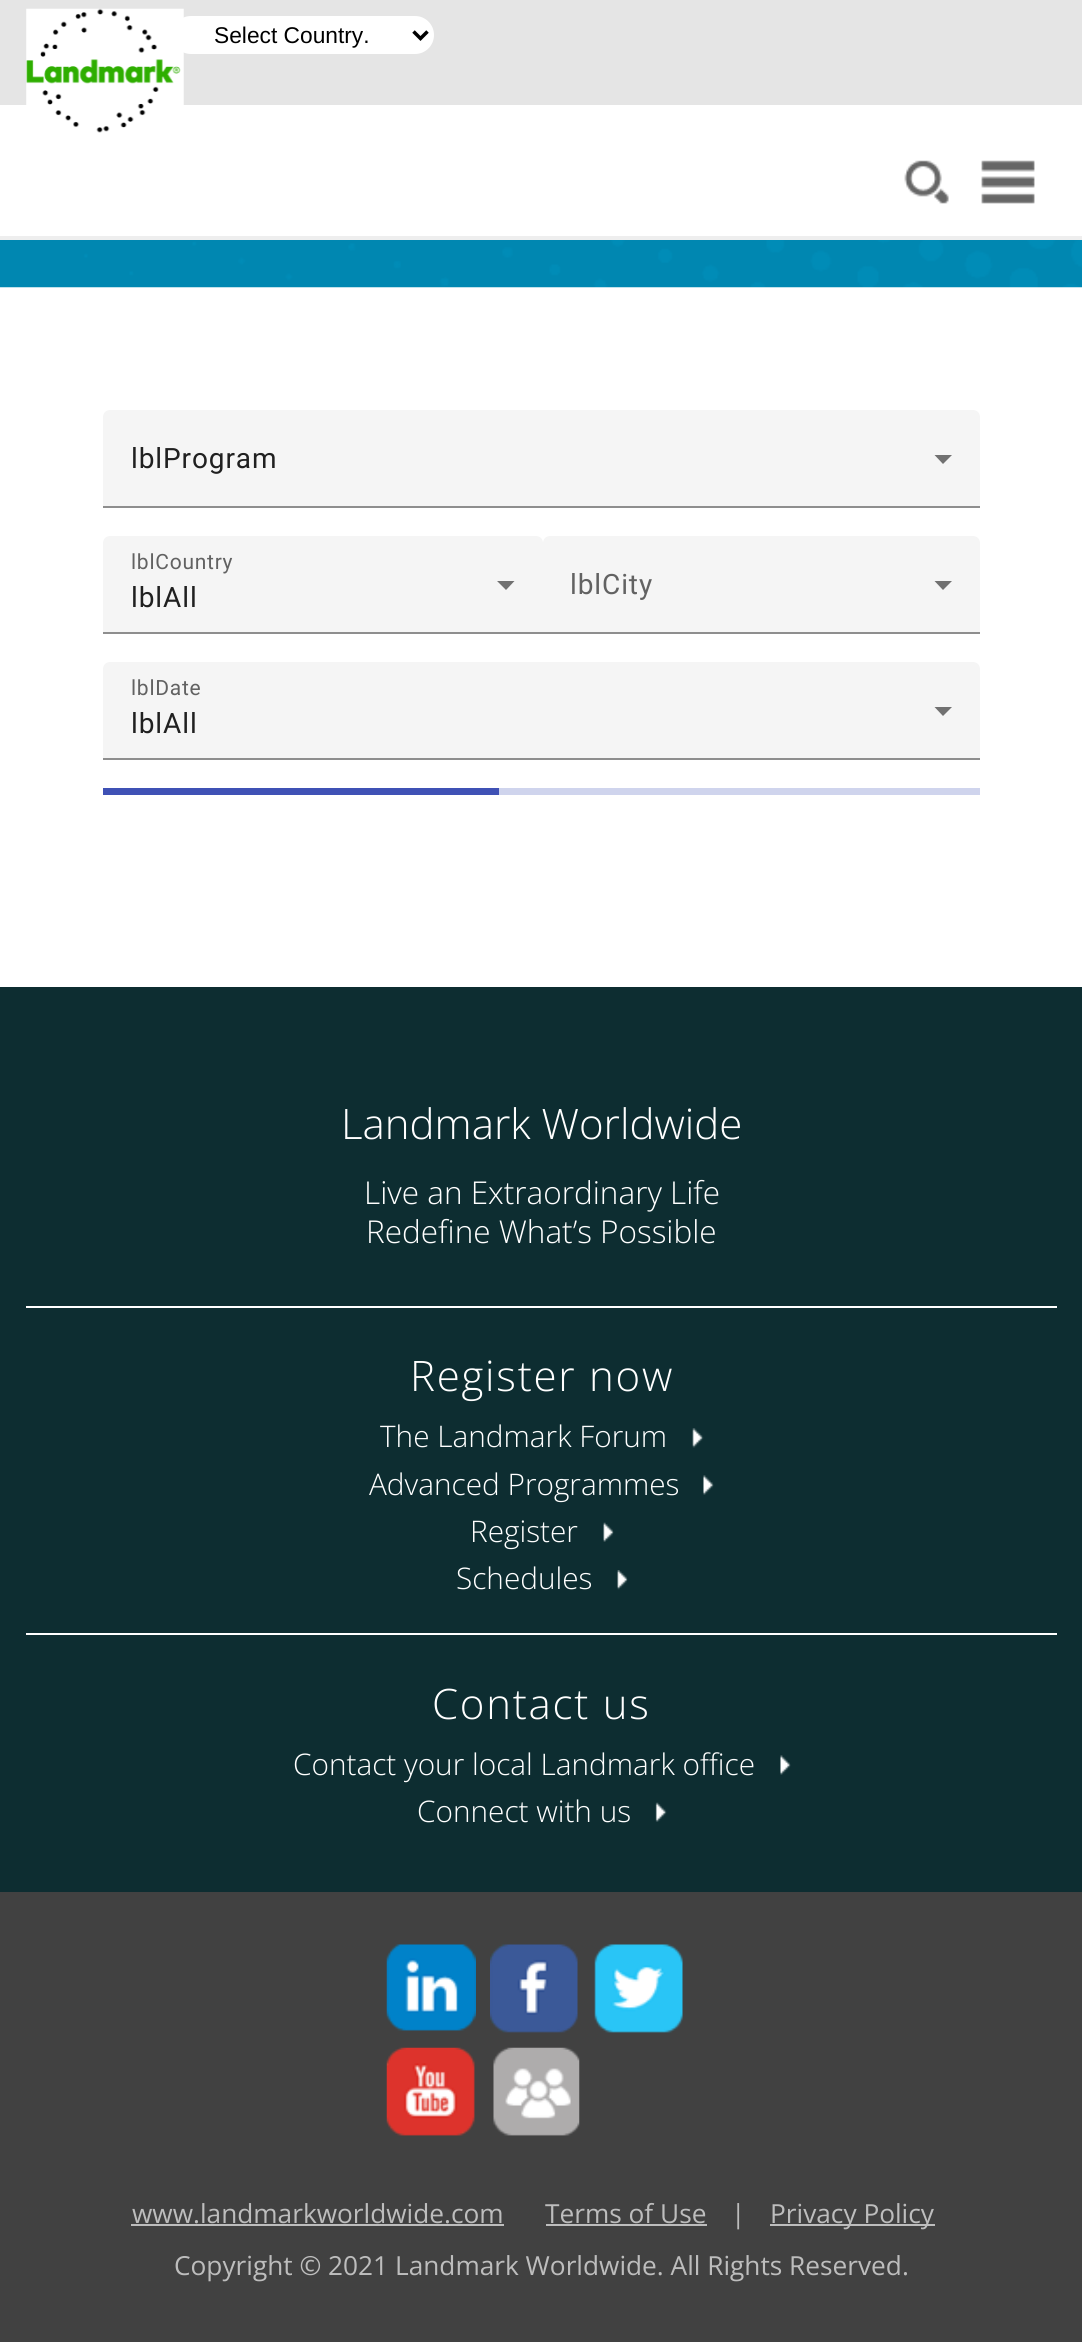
import math
import cairo

surface = cairo.ImageSurface(cairo.FORMAT_RGB24, 1082, 2342)
ctx = cairo.Context(surface)
options = cairo.FontOptions()
options.set_hint_metrics(cairo.HINT_METRICS_OFF)
options.set_hint_style(cairo.HINT_STYLE_NONE)
ctx.set_font_options(options)
ctx.set_miter_limit(4)


def set_color(code):
    ctx.set_source_rgb(*(v / 255 for v in bytes.fromhex(code[-6:])))


def draw_text(x, y, s, family, size, color, bold=False, italic=False):
    ctx.select_font_face(family, cairo.FONT_SLANT_ITALIC if italic else cairo.FONT_SLANT_NORMAL, cairo.FONT_WEIGHT_BOLD if bold else cairo.FONT_WEIGHT_NORMAL)
    ctx.set_font_size(size)
    set_color(color)
    ctx.move_to(x, y)
    ctx.show_text(s)


def draw_spaced(x, y, s, letter, word):
    ctx.move_to(x, y)
    for ch in s:
        ctx.show_text(ch)
        ctx.rel_move_to(letter + word * (ch == ' '), 0)


def fill_rect(x, y, w, h, color):
    set_color(color)
    ctx.rectangle(x, y, w, h)
    ctx.fill()


def rounded_rect(x, y, w, h, r):
    ctx.new_sub_path()
    for i, (u, v) in enumerate([(x + w - r, y + h - r), (x + r, y + h - r), (x + r, y + r), (x + w - r, y + r)]):
        ctx.arc(u, v, r, i * math.pi / 2, (i + 1) * math.pi / 2)
    ctx.close_path()


def draw_image(path, x, y, w, h):
    ctx.save()
    ctx.set_source_surface(cairo.ImageSurface.create_from_png(path), x, y)
    ctx.rectangle(x, y, w, h)
    ctx.fill()
    ctx.restore()


set_color("#ffffff")
ctx.paint()
fill_rect(0, 236, 1082, 4, "#eeeeee")
fill_rect(0, 0, 1082, 105, "#e5e5e5")
set_color("#ffffff")
rounded_rect(172, 16, 262, 38, 19)
ctx.fill()
draw_image("assets/img1.png", 26, 8, 158, 125)
ctx.new_path()
ctx.move_to(413.5, 31.5)
ctx.line_to(420.5, 38.5)
ctx.line_to(427.5, 31.5)
set_color("#000000")
ctx.set_line_width(3.5)
ctx.stroke()
draw_text(214, 43, "Select Country.", "Liberation Sans", 22.75, "#000000")
draw_image("assets/img2.png", 904, 160, 45, 44)
draw_image("assets/img3.png", 981, 160, 54, 44)
draw_image("assets/img4.png", 0, 240, 1082, 48)
set_color("#f5f5f5")
ctx.new_path()
ctx.move_to(110, 410)
ctx.line_to(973, 410)
ctx.curve_to(977, 410, 980, 413, 980, 417)
ctx.line_to(980, 508)
ctx.line_to(103, 508)
ctx.line_to(103, 417)
ctx.curve_to(103, 413, 106, 410, 110, 410)
ctx.close_path()
ctx.fill()
ctx.select_font_face("Roboto")
ctx.set_font_size(28)
set_color("#202020")
draw_spaced(131, 468, "lblProgram", 0.9, 0)
set_color("#717171")
ctx.new_path()
ctx.move_to(934.5, 455)
ctx.line_to(943, 464)
ctx.line_to(952, 455)
ctx.close_path()
ctx.fill()
fill_rect(103, 506, 877, 2, "#8e8e8e")
set_color("#f5f5f5")
ctx.new_path()
ctx.move_to(110, 536)
ctx.line_to(536, 536)
ctx.curve_to(540, 536, 543, 539, 543, 543)
ctx.line_to(543, 634)
ctx.line_to(103, 634)
ctx.line_to(103, 543)
ctx.curve_to(103, 539, 106, 536, 110, 536)
ctx.close_path()
ctx.fill()
ctx.set_font_size(21)
set_color("#626262")
draw_spaced(131, 569, "lblCountry", 0.75, 0)
ctx.set_font_size(28)
set_color("#202020")
draw_spaced(131, 607, "lblAll", 0.9, 0)
set_color("#717171")
ctx.new_path()
ctx.move_to(497, 581)
ctx.line_to(506, 590)
ctx.line_to(514.5, 581)
ctx.close_path()
ctx.fill()
fill_rect(103, 632, 440, 2, "#8e8e8e")
set_color("#f5f5f5")
ctx.new_path()
ctx.move_to(550, 536)
ctx.line_to(973, 536)
ctx.curve_to(977, 536, 980, 539, 980, 543)
ctx.line_to(980, 634)
ctx.line_to(543, 634)
ctx.line_to(543, 543)
ctx.curve_to(543, 539, 546, 536, 550, 536)
ctx.close_path()
ctx.fill()
set_color("#626262")
draw_spaced(570, 594, "lblCity", 0.9, 0)
set_color("#717171")
ctx.new_path()
ctx.move_to(934.5, 581)
ctx.line_to(943, 590)
ctx.line_to(952, 581)
ctx.close_path()
ctx.fill()
fill_rect(543, 632, 437, 2, "#8e8e8e")
set_color("#f5f5f5")
ctx.new_path()
ctx.move_to(110, 662)
ctx.line_to(973, 662)
ctx.curve_to(977, 662, 980, 665, 980, 669)
ctx.line_to(980, 760)
ctx.line_to(103, 760)
ctx.line_to(103, 669)
ctx.curve_to(103, 665, 106, 662, 110, 662)
ctx.close_path()
ctx.fill()
ctx.set_font_size(21)
set_color("#626262")
draw_spaced(131, 695, "lblDate", 0.75, 0)
ctx.set_font_size(28)
set_color("#202020")
draw_spaced(131, 733, "lblAll", 0.9, 0)
set_color("#717171")
ctx.new_path()
ctx.move_to(934.5, 707)
ctx.line_to(943, 716)
ctx.line_to(952, 707)
ctx.close_path()
ctx.fill()
fill_rect(103, 758, 877, 2, "#8e8e8e")
fill_rect(103, 788, 396, 7, "#3f51b5")
fill_rect(499, 788, 481, 7, "#cfd4ed")
fill_rect(0, 987, 1082, 905, "#0d2d31")
draw_text(341, 1139, "Landmark Worldwide", "Open Sans Light", 42, "#ffffff")
draw_text(364, 1204, "Live an Extraordinary Life", "Open Sans Light", 31.5, "#ffffff")
draw_text(366, 1243, "Redefine What’s Possible", "Open Sans Light", 31.5, "#ffffff")
fill_rect(26, 1306, 1031, 2, "#ffffff")
ctx.set_font_size(42)
draw_spaced(410, 1391, "Register now", 1.75, 0)
draw_text(380, 1447, "The Landmark Forum", "Open Sans Light", 29.75, "#ffffff")
draw_image("assets/img5.png", 692, 1428, 12, 20)
draw_text(369, 1495, "Advanced Programmes", "Open Sans Light", 29.75, "#ffffff")
draw_image("assets/img6.png", 703, 1475, 11, 20)
draw_text(470, 1542, "Register", "Open Sans Light", 29.75, "#ffffff")
draw_image("assets/img7.png", 603, 1522, 11, 20)
draw_text(456, 1589, "Schedules", "Open Sans Light", 29.75, "#ffffff")
draw_image("assets/img8.png", 617, 1570, 11, 20)
fill_rect(26, 1633, 1031, 2, "#ffffff")
ctx.set_font_size(42)
draw_spaced(432, 1719, "Contact us", 1.75, 0)
draw_text(293, 1775, "Contact your local Landmark office", "Open Sans Light", 29.75, "#ffffff")
draw_image("assets/img9.png", 780, 1755, 11, 20)
draw_text(417, 1822, "Connect with us", "Open Sans Light", 29.75, "#ffffff")
draw_image("assets/img10.png", 655, 1802, 12, 20)
fill_rect(0, 1892, 1082, 450, "#414141")
draw_image("assets/img11.png", 386, 1944, 90, 87)
draw_image("assets/img12.png", 490, 1944, 88, 89)
draw_image("assets/img13.png", 594, 1944, 89, 89)
draw_image("assets/img14.png", 386, 2047, 89, 89)
draw_image("assets/img15.png", 493, 2047, 87, 89)
draw_text(132, 2223, "www.landmarkworldwide.com", "Open Sans", 26.25, "#bdbdbd")
fill_rect(131, 2224, 373, 2, "#bdbdbd")
draw_text(545, 2223, "Terms of Use", "Open Sans", 26.25, "#bdbdbd")
fill_rect(546, 2224, 161, 2, "#bdbdbd")
draw_text(731, 2223, "|", "Open Sans", 26.25, "#bdbdbd")
fill_rect(770, 2224, 165, 2, "#bdbdbd")
draw_text(770, 2223, "Privacy Policy", "Open Sans", 26.25, "#bdbdbd")
draw_text(174, 2275, "Copyright © 2021 Landmark Worldwide. All Rights Reserved.", "Open Sans", 26.25, "#bdbdbd")
surface.write_to_png("output.png")
